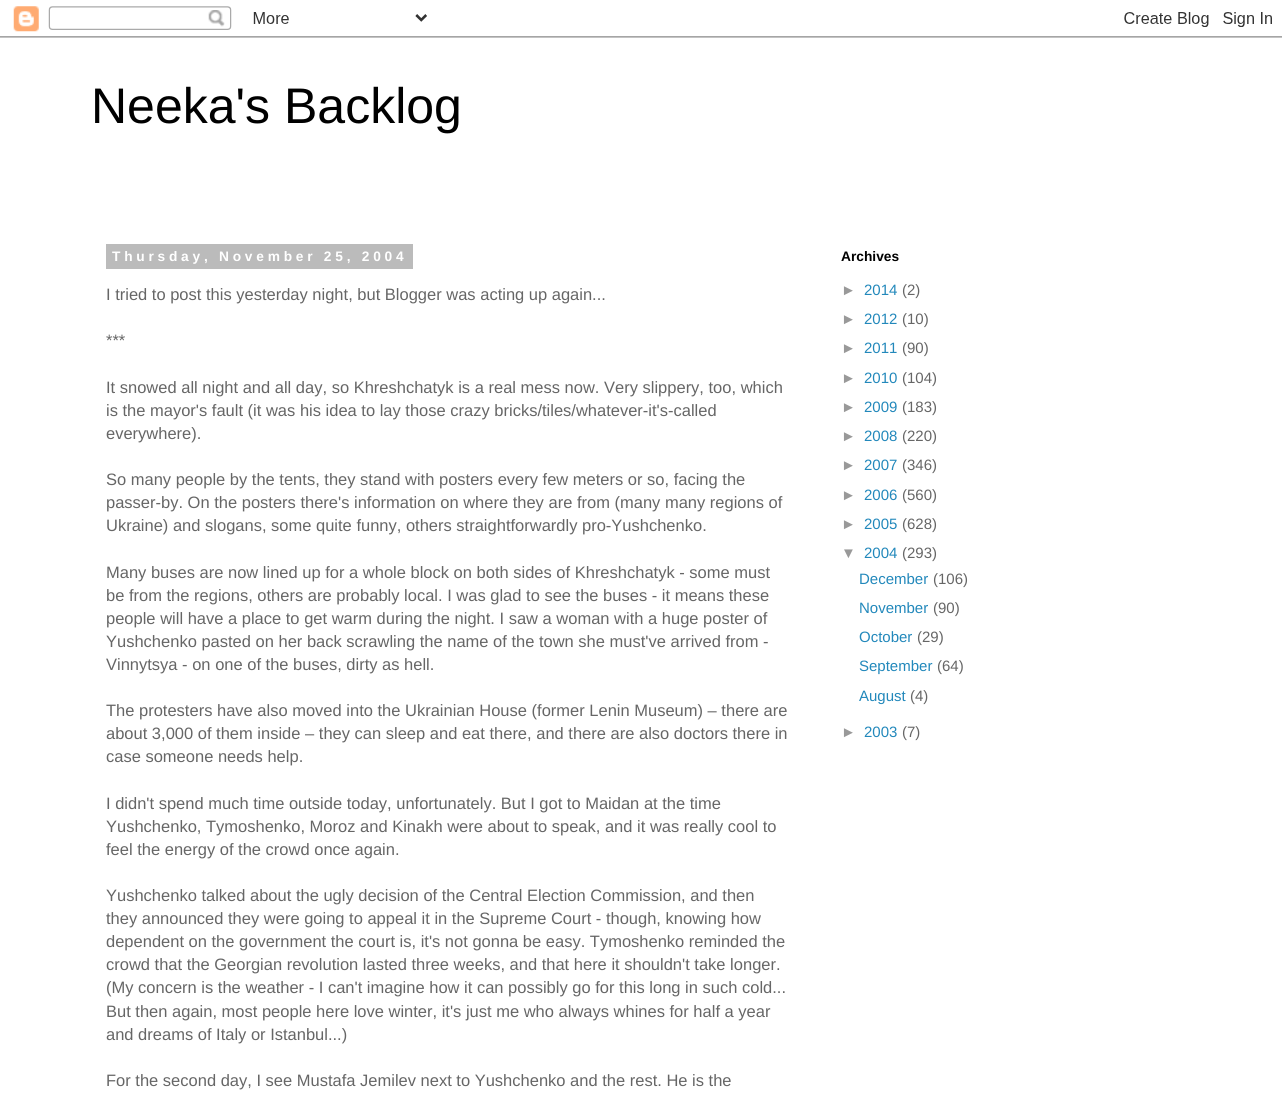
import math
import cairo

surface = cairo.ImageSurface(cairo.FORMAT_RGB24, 1282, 1101)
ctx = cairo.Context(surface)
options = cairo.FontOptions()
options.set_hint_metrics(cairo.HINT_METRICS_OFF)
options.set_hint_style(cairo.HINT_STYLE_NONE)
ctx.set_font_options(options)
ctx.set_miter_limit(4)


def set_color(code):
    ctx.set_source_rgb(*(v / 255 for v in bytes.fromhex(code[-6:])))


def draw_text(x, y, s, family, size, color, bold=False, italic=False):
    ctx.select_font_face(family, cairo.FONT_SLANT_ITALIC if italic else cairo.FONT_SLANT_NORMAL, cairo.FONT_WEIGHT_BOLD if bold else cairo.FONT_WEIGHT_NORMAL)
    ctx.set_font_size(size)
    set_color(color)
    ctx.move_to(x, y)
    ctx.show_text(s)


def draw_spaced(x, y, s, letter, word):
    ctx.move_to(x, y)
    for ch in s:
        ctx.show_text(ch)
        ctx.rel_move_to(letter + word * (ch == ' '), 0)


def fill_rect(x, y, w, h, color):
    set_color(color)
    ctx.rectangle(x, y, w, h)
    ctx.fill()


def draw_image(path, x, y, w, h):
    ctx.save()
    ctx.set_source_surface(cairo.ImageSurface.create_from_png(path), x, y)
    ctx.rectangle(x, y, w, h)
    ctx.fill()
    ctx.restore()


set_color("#ffffff")
ctx.paint()
draw_image("assets/img1.png", 0, 6, 1282, 32)
draw_text(91, 123, "Neeka's Backlog", "Liberation Sans", 50, "#000000")
fill_rect(106, 244, 307, 25, "#bbbbbb")
ctx.select_font_face("Liberation Sans", cairo.FONT_SLANT_NORMAL, cairo.FONT_WEIGHT_BOLD)
ctx.set_font_size(13.75)
set_color("#ffffff")
draw_spaced(112, 261, "Thursday, November 25, 2004", 3.75, 0)
draw_text(106, 300, "I tried to post this yesterday night, but Blogger was acting up again...", "Liberation Sans", 16.5, "#666666")
draw_text(106, 346, "***", "Liberation Sans", 16.5, "#666666")
draw_text(106, 393, "It snowed all night and all day, so Khreshchatyk is a real mess now. Very slippery, too, which", "Liberation Sans", 16.5, "#666666")
draw_text(106, 416, "is the mayor's fault (it was his idea to lay those crazy bricks/tiles/whatever-it's-called", "Liberation Sans", 16.5, "#666666")
draw_text(106, 439, "everywhere).", "Liberation Sans", 16.5, "#666666")
draw_text(106, 485, "So many people by the tents, they stand with posters every few meters or so, facing the", "Liberation Sans", 16.5, "#666666")
draw_text(106, 508, "passer-by. On the posters there's information on where they are from (many many regions of", "Liberation Sans", 16.5, "#666666")
draw_text(106, 531, "Ukraine) and slogans, some quite funny, others straightforwardly pro-Yushchenko.", "Liberation Sans", 16.5, "#666666")
draw_text(106, 578, "Many buses are now lined up for a whole block on both sides of Khreshchatyk - some must", "Liberation Sans", 16.5, "#666666")
draw_text(106, 601, "be from the regions, others are probably local. I was glad to see the buses - it means these", "Liberation Sans", 16.5, "#666666")
draw_text(106, 624, "people will have a place to get warm during the night. I saw a woman with a huge poster of", "Liberation Sans", 16.5, "#666666")
draw_text(106, 647, "Yushchenko pasted on her back scrawling the name of the town she must've arrived from -", "Liberation Sans", 16.5, "#666666")
draw_text(106, 670, "Vinnytsya - on one of the buses, dirty as hell.", "Liberation Sans", 16.5, "#666666")
draw_text(106, 716, "The protesters have also moved into the Ukrainian House (former Lenin Museum) – there are", "Liberation Sans", 16.5, "#666666")
draw_text(106, 739, "about 3,000 of them inside – they can sleep and eat there, and there are also doctors there in", "Liberation Sans", 16.5, "#666666")
draw_text(106, 762, "case someone needs help.", "Liberation Sans", 16.5, "#666666")
draw_text(106, 809, "I didn't spend much time outside today, unfortunately. But I got to Maidan at the time", "Liberation Sans", 16.5, "#666666")
draw_text(106, 832, "Yushchenko, Tymoshenko, Moroz and Kinakh were about to speak, and it was really cool to", "Liberation Sans", 16.5, "#666666")
draw_text(106, 855, "feel the energy of the crowd once again.", "Liberation Sans", 16.5, "#666666")
draw_text(106, 901, "Yushchenko talked about the ugly decision of the Central Election Commission, and then", "Liberation Sans", 16.5, "#666666")
draw_text(106, 924, "they announced they were going to appeal it in the Supreme Court - though, knowing how", "Liberation Sans", 16.5, "#666666")
draw_text(106, 947, "dependent on the government the court is, it's not gonna be easy. Tymoshenko reminded the", "Liberation Sans", 16.5, "#666666")
draw_text(106, 970, "crowd that the Georgian revolution lasted three weeks, and that here it shouldn't take longer.", "Liberation Sans", 16.5, "#666666")
draw_text(106, 993, "(My concern is the weather - I can't imagine how it can possibly go for this long in such cold...", "Liberation Sans", 16.5, "#666666")
draw_text(106, 1017, "But then again, most people here love winter, it's just me who always whines for half a year", "Liberation Sans", 16.5, "#666666")
draw_text(106, 1040, "and dreams of Italy or Istanbul...)", "Liberation Sans", 16.5, "#666666")
draw_text(106, 1086, "For the second day, I see Mustafa Jemilev next to Yushchenko and the rest. He is the", "Liberation Sans", 16.5, "#666666")
draw_text(841, 261, "Archives", "Liberation Sans", 13.75, "#000000", bold=True)
draw_text(841, 295, "►", "Liberation Sans", 15, "#999999")
draw_text(864, 295, "2014", "Liberation Sans", 15, "#2288bb")
draw_text(902, 295, "(2)", "Liberation Sans", 15, "#666666")
draw_text(841, 324, "►", "Liberation Sans", 15, "#999999")
draw_text(864, 324, "2012", "Liberation Sans", 15, "#2288bb")
draw_text(902, 324, "(10)", "Liberation Sans", 15, "#666666")
draw_text(841, 353, "►", "Liberation Sans", 15, "#999999")
draw_text(864, 353, "2011", "Liberation Sans", 15, "#2288bb")
draw_text(902, 353, "(90)", "Liberation Sans", 15, "#666666")
draw_text(841, 383, "►", "Liberation Sans", 15, "#999999")
draw_text(864, 383, "2010", "Liberation Sans", 15, "#2288bb")
draw_text(902, 383, "(104)", "Liberation Sans", 15, "#666666")
draw_text(841, 412, "►", "Liberation Sans", 15, "#999999")
draw_text(864, 412, "2009", "Liberation Sans", 15, "#2288bb")
draw_text(902, 412, "(183)", "Liberation Sans", 15, "#666666")
draw_text(841, 441, "►", "Liberation Sans", 15, "#999999")
draw_text(864, 441, "2008", "Liberation Sans", 15, "#2288bb")
draw_text(902, 441, "(220)", "Liberation Sans", 15, "#666666")
draw_text(841, 470, "►", "Liberation Sans", 15, "#999999")
draw_text(864, 470, "2007", "Liberation Sans", 15, "#2288bb")
draw_text(902, 470, "(346)", "Liberation Sans", 15, "#666666")
draw_text(841, 500, "►", "Liberation Sans", 15, "#999999")
draw_text(864, 500, "2006", "Liberation Sans", 15, "#2288bb")
draw_text(902, 500, "(560)", "Liberation Sans", 15, "#666666")
draw_text(841, 529, "►", "Liberation Sans", 15, "#999999")
draw_text(864, 529, "2005", "Liberation Sans", 15, "#2288bb")
draw_text(902, 529, "(628)", "Liberation Sans", 15, "#666666")
draw_text(841, 558, "▼", "Liberation Sans", 15, "#999999")
draw_text(864, 558, "2004", "Liberation Sans", 15, "#2288bb")
draw_text(902, 558, "(293)", "Liberation Sans", 15, "#666666")
draw_text(859, 584, "December", "Liberation Sans", 15, "#2288bb")
draw_text(933, 584, "(106)", "Liberation Sans", 15, "#666666")
draw_text(859, 613, "November", "Liberation Sans", 15, "#2288bb")
draw_text(933, 613, "(90)", "Liberation Sans", 15, "#666666")
draw_text(859, 642, "October", "Liberation Sans", 15, "#2288bb")
draw_text(917, 642, "(29)", "Liberation Sans", 15, "#666666")
draw_text(859, 671, "September", "Liberation Sans", 15, "#2288bb")
draw_text(937, 671, "(64)", "Liberation Sans", 15, "#666666")
draw_text(859, 701, "August", "Liberation Sans", 15, "#2288bb")
draw_text(910, 701, "(4)", "Liberation Sans", 15, "#666666")
draw_text(841, 737, "►", "Liberation Sans", 15, "#999999")
draw_text(864, 737, "2003", "Liberation Sans", 15, "#2288bb")
draw_text(902, 737, "(7)", "Liberation Sans", 15, "#666666")
surface.write_to_png("output.png")
